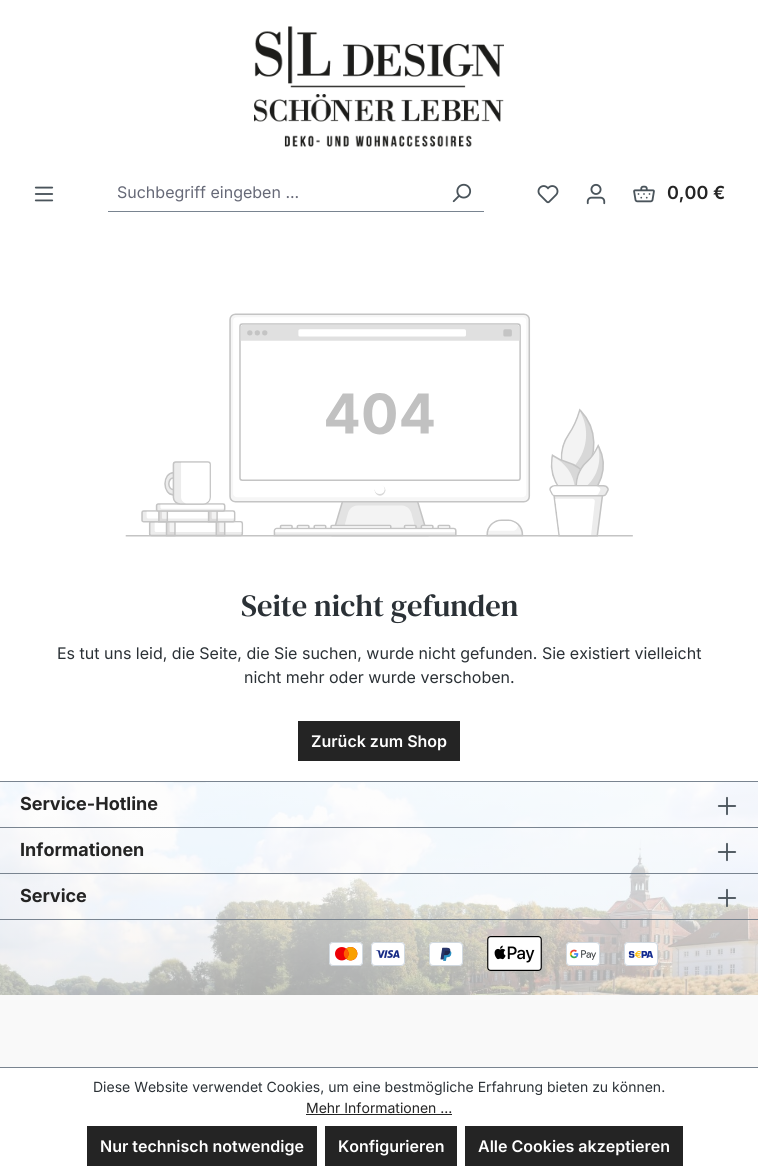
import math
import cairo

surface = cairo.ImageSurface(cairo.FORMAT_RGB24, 758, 1174)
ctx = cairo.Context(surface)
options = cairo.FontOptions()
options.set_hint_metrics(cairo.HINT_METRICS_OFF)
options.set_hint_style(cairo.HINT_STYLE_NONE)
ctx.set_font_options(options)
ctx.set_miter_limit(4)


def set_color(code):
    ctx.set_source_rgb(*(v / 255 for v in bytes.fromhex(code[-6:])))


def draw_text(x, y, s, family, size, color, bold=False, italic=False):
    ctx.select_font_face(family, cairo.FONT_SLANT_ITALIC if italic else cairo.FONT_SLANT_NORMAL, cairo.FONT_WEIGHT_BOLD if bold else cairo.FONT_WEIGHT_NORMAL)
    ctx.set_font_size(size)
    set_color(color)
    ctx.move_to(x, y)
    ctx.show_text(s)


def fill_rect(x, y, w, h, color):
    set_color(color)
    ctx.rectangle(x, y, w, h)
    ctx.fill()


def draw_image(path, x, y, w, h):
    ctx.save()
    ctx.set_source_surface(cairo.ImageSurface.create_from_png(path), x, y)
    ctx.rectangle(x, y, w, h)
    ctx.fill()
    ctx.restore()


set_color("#ffffff")
ctx.paint()
draw_image("assets/img1.png", 254, 26, 250, 121)
draw_image("assets/img2.png", 34, 186, 20, 16)
fill_rect(108, 211, 376, 1, "#798490")
draw_text(117, 198, "Suchbegriff eingeben ...", "Inter", 16, "#666977")
draw_image("assets/img3.png", 452, 183, 20, 20)
draw_image("assets/img4.png", 537, 185, 22, 19)
draw_image("assets/img5.png", 586, 183, 20, 22)
draw_image("assets/img6.png", 633, 185, 22, 18)
draw_text(667, 199, "0,00 €", "Inter SemiBold", 18, "#242424")
draw_image("assets/img7.png", 125, 313, 508, 224)
draw_text(241, 616, "Seite nicht gefunden", "DM Serif Text", 30.75, "#2b3136")
draw_text(57, 659, "Es tut uns leid, die Seite, die Sie suchen, wurde nicht gefunden. Sie existiert vielleicht", "Inter", 16, "#2b3136")
draw_text(244, 683, "nicht mehr oder wurde verschoben.", "Inter", 16, "#2b3136")
fill_rect(298, 721, 162, 40, "#242424")
draw_text(311, 747, "Zurück zum Shop", "Inter SemiBold", 16, "#ffffff")
draw_image("assets/img8.png", 0, 782, 758, 213)
fill_rect(0, 781, 758, 1, "#798490")
fill_rect(0, 827, 758, 1, "#798490")
draw_text(20, 810, "Service-Hotline", "Inter", 18, "#242424", bold=True)
draw_image("assets/img9.png", 717, 796, 20, 20)
fill_rect(0, 873, 758, 1, "#798490")
draw_text(20, 856, "Informationen", "Inter", 18, "#242424", bold=True)
draw_image("assets/img10.png", 717, 842, 20, 20)
fill_rect(0, 919, 758, 1, "#798490")
draw_text(20, 902, "Service", "Inter", 18, "#242424", bold=True)
draw_image("assets/img11.png", 717, 888, 20, 20)
draw_image("assets/img12.png", 329, 942, 76, 24)
draw_image("assets/img13.png", 429, 942, 34, 24)
draw_image("assets/img14.png", 487, 936, 55, 35)
draw_image("assets/img15.png", 566, 942, 34, 24)
draw_image("assets/img16.png", 624, 942, 34, 24)
fill_rect(0, 995, 758, 72, "#f9f9f9")
fill_rect(0, 1067, 758, 1, "#798490")
draw_text(93, 1092, "Diese Website verwendet Cookies, um eine bestmögliche Erfahrung bieten zu können.", "Inter", 14, "#2b3136")
draw_text(306, 1113, "Mehr Informationen ...", "Inter", 14, "#242424")
fill_rect(306, 1114, 146, 1, "#242424")
fill_rect(87, 1126, 230, 40, "#242424")
draw_text(100, 1152, "Nur technisch notwendige", "Inter SemiBold", 16, "#ffffff")
fill_rect(325, 1126, 132, 40, "#242424")
draw_text(338, 1152, "Konfigurieren", "Inter SemiBold", 16, "#ffffff")
fill_rect(465, 1126, 218, 40, "#242424")
draw_text(478, 1152, "Alle Cookies akzeptieren", "Inter SemiBold", 16, "#ffffff")
surface.write_to_png("output.png")
